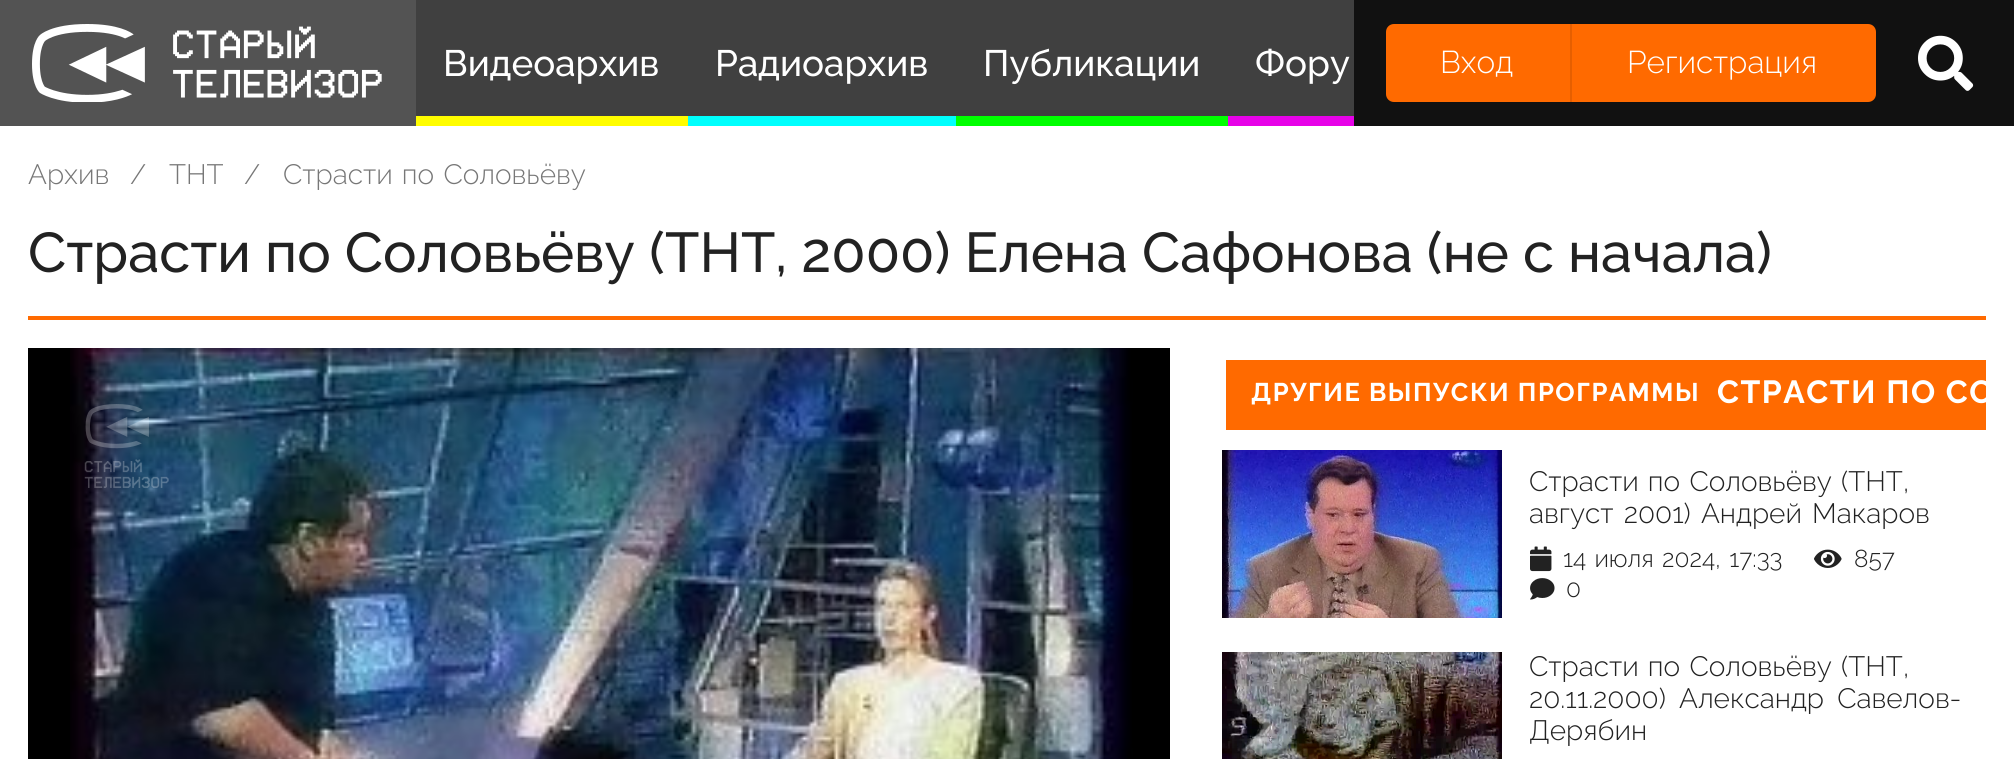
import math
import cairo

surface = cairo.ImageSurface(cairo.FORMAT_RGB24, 2014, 759)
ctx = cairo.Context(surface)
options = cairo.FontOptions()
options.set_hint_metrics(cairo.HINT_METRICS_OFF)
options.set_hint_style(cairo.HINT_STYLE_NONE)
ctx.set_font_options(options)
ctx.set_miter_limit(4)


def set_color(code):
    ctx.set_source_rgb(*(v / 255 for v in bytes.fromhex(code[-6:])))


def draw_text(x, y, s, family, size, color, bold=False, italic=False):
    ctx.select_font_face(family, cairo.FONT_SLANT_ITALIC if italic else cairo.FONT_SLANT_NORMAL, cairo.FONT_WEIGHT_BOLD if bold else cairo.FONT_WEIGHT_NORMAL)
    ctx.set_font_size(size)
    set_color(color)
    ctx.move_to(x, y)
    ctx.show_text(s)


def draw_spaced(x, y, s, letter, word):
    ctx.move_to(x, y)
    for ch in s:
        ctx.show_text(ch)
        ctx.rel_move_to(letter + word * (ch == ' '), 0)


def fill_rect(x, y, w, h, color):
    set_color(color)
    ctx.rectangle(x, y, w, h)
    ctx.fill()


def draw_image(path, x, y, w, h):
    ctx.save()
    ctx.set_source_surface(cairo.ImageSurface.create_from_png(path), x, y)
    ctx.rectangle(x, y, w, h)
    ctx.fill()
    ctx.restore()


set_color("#ffffff")
ctx.paint()
fill_rect(416, 0, 938, 116, "#404040")
fill_rect(0, 0, 416, 126, "#535353")
draw_image("assets/img1.png", 32, 24, 350, 78)
draw_text(443, 76, "Видеоархив", "Raleway Medium", 36.75, "#ffffff")
fill_rect(416, 116, 272, 10, "#fffd00")
draw_text(715, 76, "Радиоархив", "Raleway Medium", 36.75, "#ffffff")
fill_rect(688, 116, 268, 10, "#00fffd")
draw_text(983, 76, "Публикации", "Raleway Medium", 36.75, "#ffffff")
fill_rect(956, 116, 272, 10, "#00ff00")
draw_text(1255, 76, "Фору", "Raleway Medium", 36.75, "#ffffff")
fill_rect(1228, 116, 126, 10, "#e702e8")
fill_rect(1354, 0, 660, 126, "#111111")
set_color("#ff6a00")
ctx.new_path()
ctx.move_to(1394, 24)
ctx.line_to(1572, 24)
ctx.line_to(1572, 102)
ctx.line_to(1394, 102)
ctx.curve_to(1389.5, 102, 1386, 98.5, 1386, 94)
ctx.line_to(1386, 32)
ctx.curve_to(1386, 27.5, 1389.5, 24, 1394, 24)
ctx.close_path()
ctx.fill()
fill_rect(1570, 24, 2, 78, "#e65f00")
draw_text(1440, 73, "Вход", "Raleway Light", 31.5, "#ffffff")
set_color("#ff6a00")
ctx.new_path()
ctx.move_to(1572, 24)
ctx.line_to(1868, 24)
ctx.curve_to(1872.5, 24, 1876, 27.5, 1876, 32)
ctx.line_to(1876, 94)
ctx.curve_to(1876, 98.5, 1872.5, 102, 1868, 102)
ctx.line_to(1572, 102)
ctx.close_path()
ctx.fill()
draw_text(1627, 73, "Регистрация", "Raleway Light", 31.5, "#ffffff")
draw_image("assets/img2.png", 1918, 35, 56, 56)
draw_text(28, 184, "Архив", "Raleway Light", 28, "#777777")
draw_text(130, 184, "/", "Raleway Light", 28, "#777777")
draw_text(169, 184, "ТНТ", "Raleway Light", 28, "#777777")
draw_text(244, 184, "/", "Raleway Light", 28, "#777777")
draw_spaced(283, 184, "Страсти по Соловьёву", 0, 2)
fill_rect(28, 316, 1958, 4, "#ff6a00")
draw_text(28, 272, "Страсти по Соловьёву (ТНТ, 2000) Елена Сафонова (не с начала)", "Raleway Medium", 56, "#222222")
fill_rect(28, 348, 1142, 411, "#000000")
draw_image("assets/img3.png", 70, 348, 1063, 411)
draw_image("assets/img4.png", 84, 404, 85, 84)
fill_rect(1226, 360, 760, 70, "#ff6a00")
ctx.select_font_face("Raleway", cairo.FONT_SLANT_NORMAL, cairo.FONT_WEIGHT_BOLD)
ctx.set_font_size(25.6)
set_color("#ffffff")
draw_spaced(1251, 401, "ДРУГИЕ ВЫПУСКИ ПРОГРАММЫ", 1.5, 0)
ctx.save()
ctx.rectangle(1226, 360, 760, 66)
ctx.clip()
ctx.set_font_size(32)
draw_spaced(1717, 403, "СТРАСТИ ПО СО", 1.5, 0)
ctx.restore()
draw_image("assets/img5.png", 1222, 450, 280, 168)
ctx.select_font_face("Raleway Light")
ctx.set_font_size(28)
set_color("#222222")
draw_spaced(1529, 491, "Страсти по Соловьёву (ТНТ,", 0, 2)
draw_spaced(1529, 523, "август 2001) Андрей Макаров", 0, 3)
draw_image("assets/img6.png", 1530, 546, 22, 26)
ctx.set_font_size(24.5)
draw_spaced(1563, 567, "14 июля 2024, 17:33", 0, 2)
draw_image("assets/img7.png", 1814, 549, 28, 19)
draw_text(1854, 567, "857", "Raleway Light", 24.5, "#222222")
draw_image("assets/img8.png", 1530, 578, 25, 22)
draw_text(1566, 597, "0", "Raleway Light", 24.5, "#222222")
draw_image("assets/img9.png", 1222, 652, 280, 107)
ctx.set_font_size(28)
draw_spaced(1529, 676, "Страсти по Соловьёву (ТНТ,", 0, 2)
draw_spaced(1529, 708, "20.11.2000) Александр Савелов-", 0, 6)
draw_text(1529, 740, "Дерябин", "Raleway Light", 28, "#222222")
surface.write_to_png("output.png")
